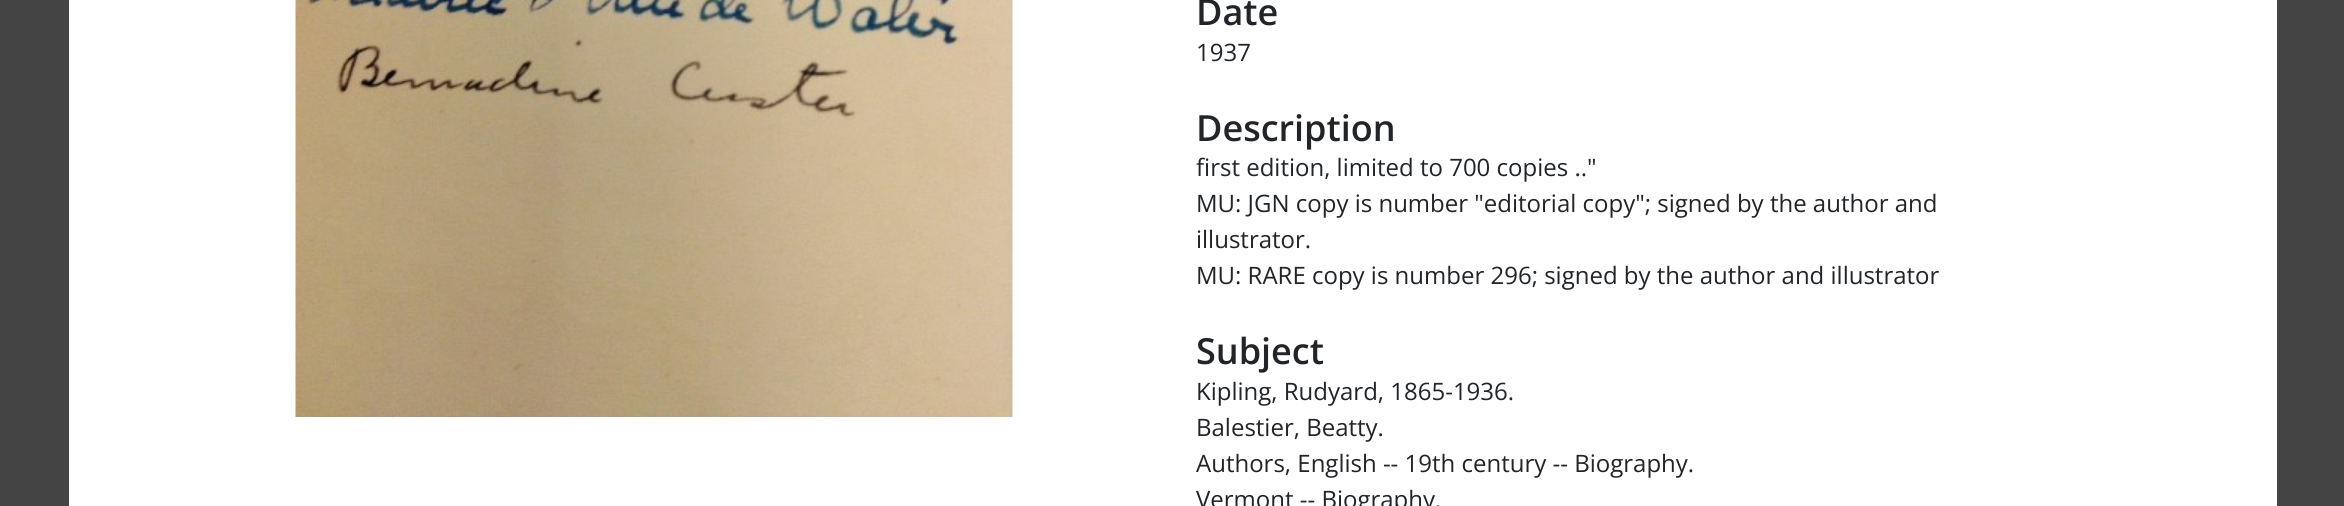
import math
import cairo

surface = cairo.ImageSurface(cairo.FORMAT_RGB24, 2344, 506)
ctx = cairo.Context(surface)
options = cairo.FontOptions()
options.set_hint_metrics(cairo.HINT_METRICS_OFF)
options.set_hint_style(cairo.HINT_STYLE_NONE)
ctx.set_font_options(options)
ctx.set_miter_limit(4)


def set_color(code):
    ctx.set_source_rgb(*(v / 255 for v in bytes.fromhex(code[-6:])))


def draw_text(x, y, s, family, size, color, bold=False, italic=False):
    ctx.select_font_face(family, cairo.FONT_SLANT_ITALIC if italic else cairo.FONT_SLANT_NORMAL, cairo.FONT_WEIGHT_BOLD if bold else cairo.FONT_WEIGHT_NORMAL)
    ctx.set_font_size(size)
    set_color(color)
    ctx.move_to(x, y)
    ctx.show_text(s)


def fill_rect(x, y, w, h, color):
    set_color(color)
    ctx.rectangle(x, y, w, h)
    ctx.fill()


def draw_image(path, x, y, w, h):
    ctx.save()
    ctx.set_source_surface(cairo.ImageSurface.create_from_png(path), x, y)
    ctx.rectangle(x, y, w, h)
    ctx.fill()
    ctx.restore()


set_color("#444444")
ctx.paint()
fill_rect(69, 0, 2208, 506, "#ffffff")
draw_image("assets/img1.png", 295, 0, 718, 417)
draw_text(1196, 25, "Date", "Open Sans SemiBold", 36, "#212529")
draw_text(1196, 61, "1937", "Open Sans", 24, "#212529")
draw_text(1196, 141, "Description", "Open Sans SemiBold", 36, "#212529")
draw_text(1196, 176, "first edition, limited to 700 copies ..\"", "Open Sans", 24, "#212529")
draw_text(1196, 212, "MU: JGN copy is number \"editorial copy\"; signed by the author and", "Open Sans", 24, "#212529")
draw_text(1196, 248, "illustrator.", "Open Sans", 24, "#212529")
draw_text(1196, 284, "MU: RARE copy is number 296; signed by the author and illustrator", "Open Sans", 24, "#212529")
draw_text(1196, 364, "Subject", "Open Sans SemiBold", 36, "#212529")
draw_text(1196, 400, "Kipling, Rudyard, 1865-1936.", "Open Sans", 24, "#212529")
draw_text(1196, 436, "Balestier, Beatty.", "Open Sans", 24, "#212529")
draw_text(1196, 472, "Authors, English -- 19th century -- Biography.", "Open Sans", 24, "#212529")
draw_text(1196, 508, "Vermont -- Biography.", "Open Sans", 24, "#212529")
surface.write_to_png("output.png")
